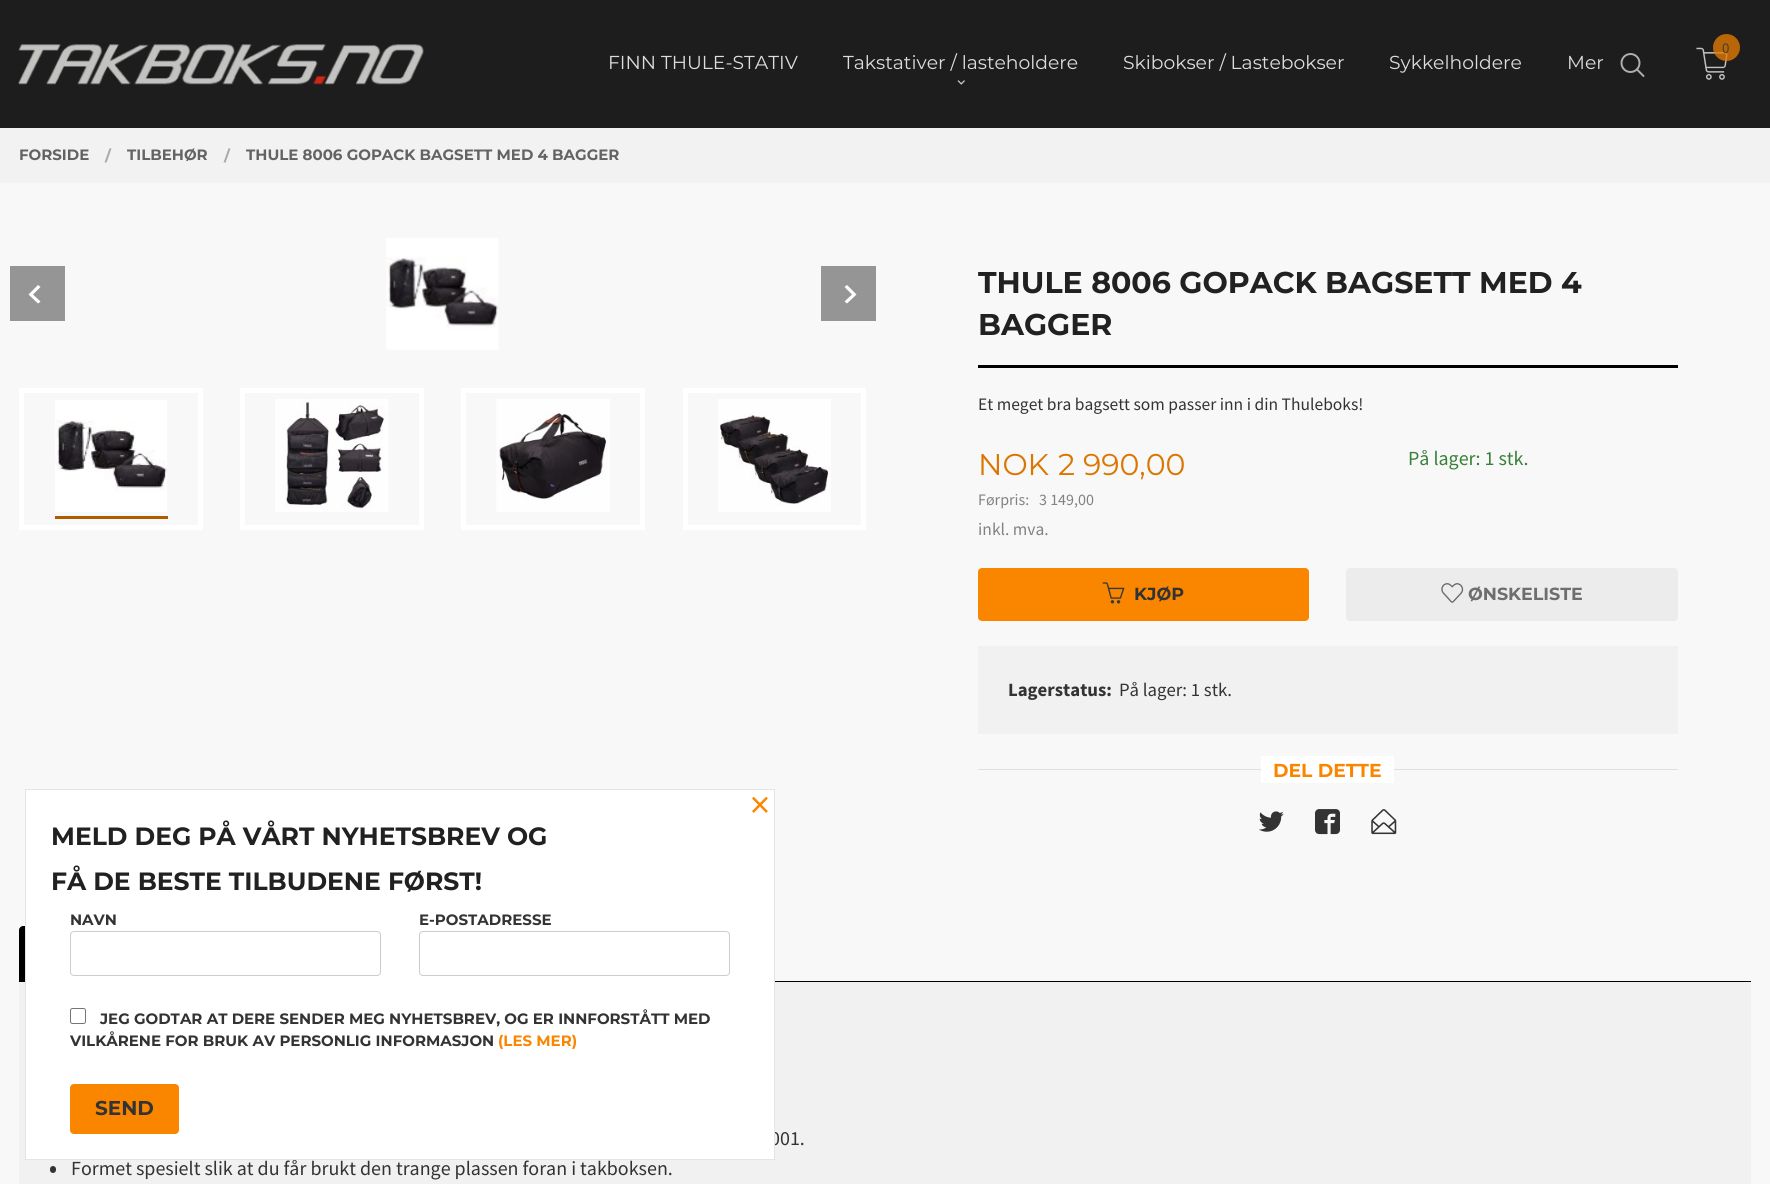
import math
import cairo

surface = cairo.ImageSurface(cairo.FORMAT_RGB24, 1770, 1184)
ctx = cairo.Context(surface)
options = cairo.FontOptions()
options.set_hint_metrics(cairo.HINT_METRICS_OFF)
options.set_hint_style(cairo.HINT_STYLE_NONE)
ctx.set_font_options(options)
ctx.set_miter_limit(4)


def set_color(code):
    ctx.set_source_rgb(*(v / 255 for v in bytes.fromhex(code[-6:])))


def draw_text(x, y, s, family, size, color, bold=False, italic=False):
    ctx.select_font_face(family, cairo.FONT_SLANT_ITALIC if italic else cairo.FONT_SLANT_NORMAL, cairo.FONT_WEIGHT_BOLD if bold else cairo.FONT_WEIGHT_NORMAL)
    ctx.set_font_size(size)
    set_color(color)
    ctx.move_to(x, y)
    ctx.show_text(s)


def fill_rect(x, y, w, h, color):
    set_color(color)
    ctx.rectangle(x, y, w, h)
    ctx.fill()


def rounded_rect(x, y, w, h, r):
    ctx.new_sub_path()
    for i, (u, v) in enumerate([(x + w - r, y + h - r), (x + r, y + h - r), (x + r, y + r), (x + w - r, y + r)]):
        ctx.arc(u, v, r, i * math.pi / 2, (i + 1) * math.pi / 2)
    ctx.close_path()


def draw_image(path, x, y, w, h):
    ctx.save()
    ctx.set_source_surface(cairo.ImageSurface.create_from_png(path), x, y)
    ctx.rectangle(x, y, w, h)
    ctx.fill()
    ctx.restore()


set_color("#f8f8f8")
ctx.paint()
fill_rect(0, 0, 1770, 128, "#1d1d1d")
draw_image("assets/img1.png", 1696, 47, 32, 33)
ctx.set_source_rgba(0.902, 0.482, 0, 0.77)
ctx.arc(1726.5, 47.5, 13.5, 0, 2 * math.pi)
ctx.fill()
draw_text(1722, 53, "0", "Source Sans Pro", 15, "#503d27")
draw_image("assets/img2.png", 18, 44, 406, 41)
draw_text(608, 69, "FINN THULE-STATIV", "Montserrat", 18.75, "#dddddd")
draw_text(843, 69, "Takstativer / lasteholdere", "Montserrat", 18.75, "#dddddd")
draw_image("assets/img3.png", 957, 80, 8, 5)
draw_text(1123, 69, "Skibokser / Lastebokser", "Montserrat", 18.75, "#dddddd")
draw_text(1389, 69, "Sykkelholdere", "Montserrat", 18.75, "#dddddd")
draw_text(1567, 69, "Mer", "Montserrat", 18.75, "#dddddd")
ctx.new_path()
ctx.arc(1630.5, 63, 9, 0, 2 * math.pi)
set_color("#adadad")
ctx.stroke()
ctx.new_path()
ctx.move_to(1643.5, 76)
ctx.line_to(1637, 69.5)
ctx.set_line_cap(cairo.LINE_CAP_ROUND)
ctx.stroke()
fill_rect(0, 128, 1770, 55, "#f2f2f2")
draw_text(19, 160, "FORSIDE", "Montserrat", 15, "#636363", bold=True)
draw_text(105, 161, "/", "Montserrat", 15, "#aaaaaa", bold=True)
draw_text(127, 160, "TILBEHØR", "Montserrat", 15, "#636363", bold=True)
draw_text(224, 161, "/", "Montserrat", 15, "#aaaaaa", bold=True)
draw_text(246, 160, "THULE 8006 GOPACK BAGSETT MED 4 BAGGER", "Montserrat", 15, "#636363", bold=True)
draw_image("assets/img4.png", 386, 238, 113, 112)
fill_rect(10, 266, 55, 55, "#959595")
set_color("#ffffff")
ctx.new_path()
ctx.move_to(40.5, 287)
ctx.line_to(38, 285)
ctx.line_to(28.5, 294.5)
ctx.line_to(38, 303.5)
ctx.line_to(40.5, 301.5)
ctx.line_to(33, 294.5)
ctx.close_path()
ctx.fill()
fill_rect(821, 266, 55, 55, "#959595")
set_color("#ffffff")
ctx.new_path()
ctx.move_to(847, 285)
ctx.line_to(844.5, 287)
ctx.line_to(852, 294.5)
ctx.line_to(844.5, 301.5)
ctx.line_to(847, 303.5)
ctx.line_to(856.5, 294.5)
ctx.close_path()
ctx.fill()
ctx.rectangle(21.5, 390.5, 179, 137)
ctx.set_line_width(5)
ctx.set_line_cap(cairo.LINE_CAP_BUTT)
ctx.stroke()
fill_rect(55, 516, 113, 3, "#ad5d00")
draw_image("assets/img5.png", 55, 400, 112, 112)
ctx.rectangle(242.5, 390.5, 179, 137)
set_color("#ffffff")
ctx.stroke()
draw_image("assets/img6.png", 275, 399, 114, 113)
ctx.rectangle(463.5, 390.5, 179, 137)
ctx.stroke()
draw_image("assets/img7.png", 496, 399, 114, 113)
ctx.rectangle(685.5, 390.5, 178, 137)
ctx.stroke()
draw_image("assets/img8.png", 718, 399, 113, 113)
fill_rect(978, 365, 700, 3, "#000000")
draw_text(978, 293, "THULE 8006 GOPACK BAGSETT MED 4", "Montserrat", 30, "#212121", bold=True)
draw_text(978, 335, "BAGGER", "Montserrat", 30, "#212121", bold=True)
draw_text(978, 410, "Et meget bra bagsett som passer inn i din Thuleboks!", "Source Sans Pro", 17.5, "#333333")
draw_text(978, 475, "NOK", "Montserrat", 30, "#db7600")
draw_text(1058, 475, "2 990,00", "Montserrat", 30, "#db7600")
draw_text(978, 505, "Førpris:", "Source Sans Pro", 16, "#828282")
draw_text(1039, 505, "3 149,00", "Source Sans Pro", 16, "#828282")
draw_text(978, 535, "inkl. mva.", "Source Sans Pro", 17.5, "#828282")
draw_text(1408, 465, "På lager: 1 stk.", "Source Sans Pro", 20, "#388038")
set_color("#fa8600")
rounded_rect(978, 568, 331, 53, 4)
ctx.fill()
draw_image("assets/img9.png", 1102, 582, 23, 22)
draw_text(1134, 600, "KJØP", "Montserrat", 17.5, "#333333", bold=True)
set_color("#ececec")
rounded_rect(1346, 568, 332, 53, 4)
ctx.fill()
draw_image("assets/img10.png", 1441, 583, 23, 20)
draw_text(1468, 600, "ØNSKELISTE", "Montserrat", 17.5, "#6e6e6e", bold=True)
fill_rect(978, 646, 700, 88, "#f1f1f1")
draw_text(1008, 696, "Lagerstatus:", "Source Sans Pro", 18.75, "#333333", bold=True)
draw_text(1119, 696, "På lager: 1 stk.", "Source Sans Pro", 18.75, "#333333")
fill_rect(978, 769, 700, 1, "#e0e0e0")
fill_rect(1261, 756, 133, 27, "#ffffff")
draw_text(1273, 777, "DEL DETTE", "Montserrat", 18.75, "#fa8600", bold=True)
draw_image("assets/img11.png", 1259, 811, 25, 21)
draw_image("assets/img12.png", 1315, 809, 25, 26)
draw_image("assets/img13.png", 1371, 809, 26, 26)
set_color("#000000")
ctx.new_path()
ctx.move_to(23, 926)
ctx.line_to(219, 926)
ctx.curve_to(221, 926, 223, 928, 223, 930)
ctx.line_to(223, 981)
ctx.line_to(19, 981)
ctx.line_to(19, 930)
ctx.curve_to(19, 928, 21, 926, 23, 926)
ctx.close_path()
ctx.fill()
fill_rect(19, 982, 1732, 202, "#f1f1f1")
fill_rect(19, 981, 1732, 1, "#000000")
draw_text(770, 1145, "001.", "Source Sans Pro", 20, "#333333")
rounded_rect(50, 1166, 6, 7, 3)
ctx.fill()
draw_text(71, 1175, "Formet spesielt slik at du får brukt den trange plassen foran i takboksen.", "Source Sans Pro", 20, "#333333")
set_color("#ffffff")
ctx.rectangle(25.5, 789.5, 749, 370)
ctx.fill_preserve()
set_color("#e4e4e4")
ctx.set_line_width(1)
ctx.stroke()
draw_text(750, 818, "×", "Source Sans Pro", 40, "#fa8600")
draw_text(51, 845, "MELD DEG PÅ VÅRT NYHETSBREV OG", "Montserrat", 25, "#212121", bold=True)
draw_text(51, 890, "FÅ DE BESTE TILBUDENE FØRST!", "Montserrat", 25, "#212121", bold=True)
draw_text(70, 925, "NAVN", "Montserrat", 15, "#333333", bold=True)
rounded_rect(70.5, 931.5, 310, 44, 3.5)
set_color("#cccccc")
ctx.stroke()
draw_text(419, 925, "E-POSTADRESSE", "Montserrat", 15, "#333333", bold=True)
rounded_rect(419.5, 931.5, 310, 44, 3.5)
set_color("#cccccc")
ctx.stroke()
rounded_rect(70.5, 1008.5, 15, 15, 2)
set_color("#767676")
ctx.stroke()
draw_text(100, 1024, "JEG GODTAR AT DERE SENDER MEG NYHETSBREV, OG ER INNFORSTÅTT MED", "Montserrat", 15, "#333333", bold=True)
draw_text(70, 1046, "VILKÅRENE FOR BRUK AV PERSONLIG INFORMASJON", "Montserrat", 15, "#333333", bold=True)
draw_text(498, 1046, "(LES MER)", "Montserrat", 15, "#fa8600", bold=True)
rounded_rect(70, 1084, 109, 50, 4)
ctx.fill()
draw_text(95, 1115, "SEND", "Montserrat", 20, "#333333", bold=True)
surface.write_to_png("output.png")
